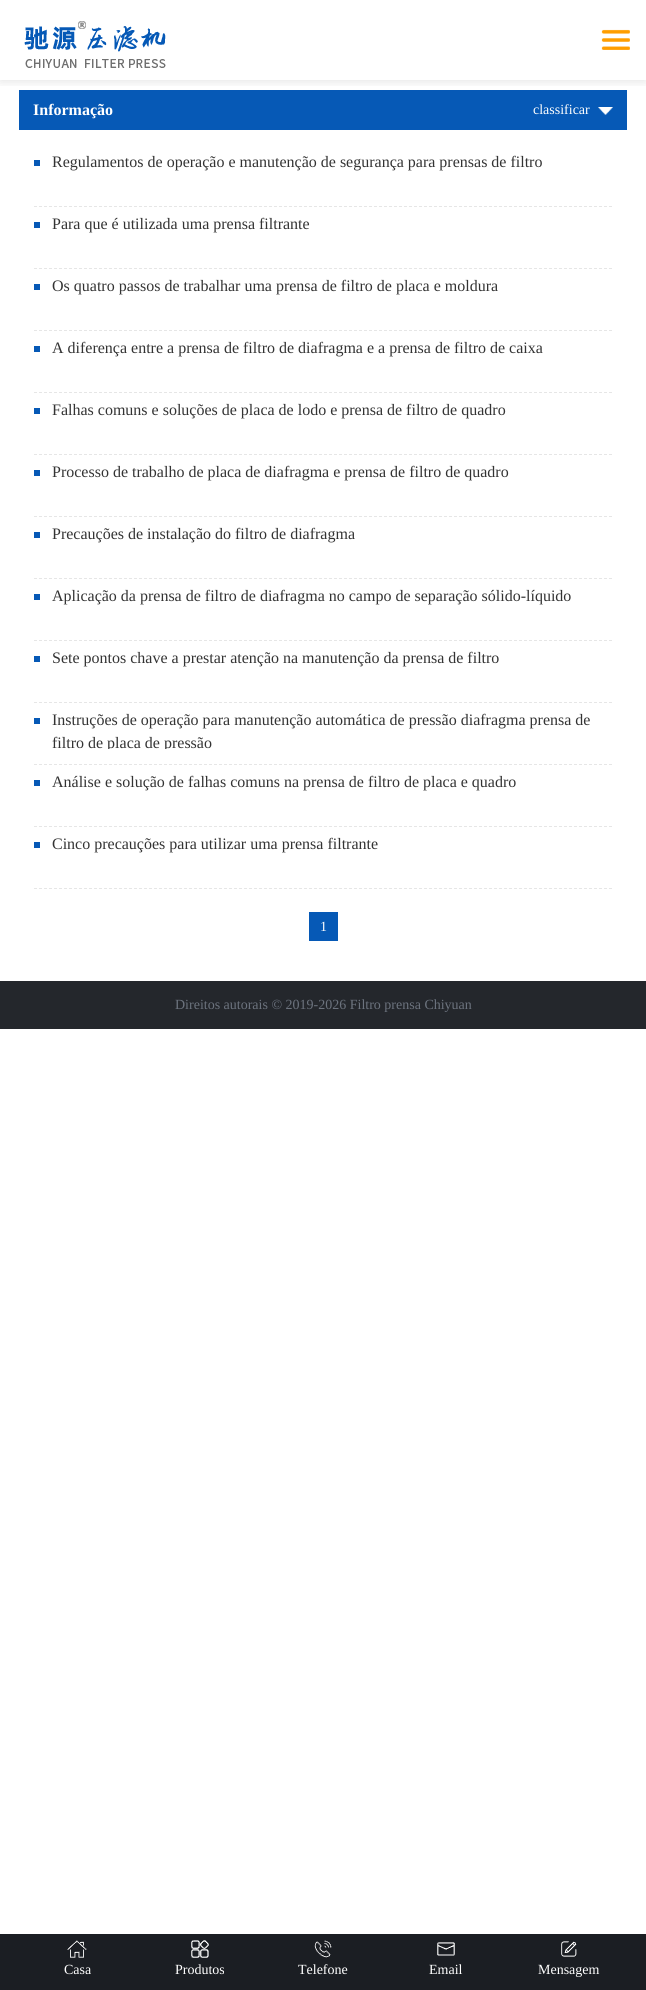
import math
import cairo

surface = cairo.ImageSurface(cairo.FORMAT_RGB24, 646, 1990)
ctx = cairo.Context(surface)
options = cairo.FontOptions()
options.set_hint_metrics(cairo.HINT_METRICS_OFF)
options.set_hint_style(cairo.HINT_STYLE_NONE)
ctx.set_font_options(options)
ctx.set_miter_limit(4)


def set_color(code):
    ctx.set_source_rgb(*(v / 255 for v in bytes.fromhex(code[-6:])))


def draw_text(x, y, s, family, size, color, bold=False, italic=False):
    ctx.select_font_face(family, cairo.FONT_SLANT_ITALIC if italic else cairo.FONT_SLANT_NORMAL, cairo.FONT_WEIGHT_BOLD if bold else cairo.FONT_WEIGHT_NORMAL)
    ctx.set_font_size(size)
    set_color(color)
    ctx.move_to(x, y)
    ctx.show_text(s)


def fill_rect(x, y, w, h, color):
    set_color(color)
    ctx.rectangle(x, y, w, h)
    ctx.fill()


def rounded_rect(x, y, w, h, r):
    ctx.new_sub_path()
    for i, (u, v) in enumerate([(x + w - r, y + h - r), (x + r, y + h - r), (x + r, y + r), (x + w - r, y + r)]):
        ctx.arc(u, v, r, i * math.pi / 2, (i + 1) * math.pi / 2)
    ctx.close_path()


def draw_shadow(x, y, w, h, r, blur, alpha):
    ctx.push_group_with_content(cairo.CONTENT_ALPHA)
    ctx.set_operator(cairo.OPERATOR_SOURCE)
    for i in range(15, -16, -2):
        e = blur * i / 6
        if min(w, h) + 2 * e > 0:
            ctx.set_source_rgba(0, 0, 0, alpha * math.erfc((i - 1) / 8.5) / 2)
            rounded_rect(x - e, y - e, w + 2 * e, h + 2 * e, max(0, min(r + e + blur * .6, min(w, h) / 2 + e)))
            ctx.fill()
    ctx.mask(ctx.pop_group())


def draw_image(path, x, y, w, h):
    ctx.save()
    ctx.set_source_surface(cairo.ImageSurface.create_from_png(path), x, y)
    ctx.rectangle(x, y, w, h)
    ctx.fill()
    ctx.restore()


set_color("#ffffff")
ctx.paint()
fill_rect(19, 90, 608, 40, "#0659b6")
ctx.save()
ctx.rectangle(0, 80, 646, 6)
ctx.clip()
set_color("#000000")
draw_shadow(0, 2, 646, 80, 0, 5, 0.1)
ctx.restore()
draw_image("assets/img1.png", 24, 21, 142, 47)
draw_image("assets/img2.png", 601, 29, 29, 21)
draw_text(33, 115, "Informação", "Liberation Serif", 16, "#ffffff", bold=True)
draw_text(533, 114, "classificar", "Liberation Serif", 14, "#ffffff")
draw_image("assets/img3.png", 598, 107, 15, 8)
ctx.new_path()
ctx.move_to(34, 206.5)
ctx.line_to(612, 206.5)
set_color("#e6e6e6")
ctx.set_line_width(1)
ctx.set_dash([3, 2])
ctx.stroke()
fill_rect(34, 160, 6, 6, "#0659b6")
draw_text(52, 167, "Regulamentos de operação e manutenção de segurança para prensas de filtro", "Liberation Serif", 16, "#333333")
ctx.new_path()
ctx.move_to(34, 268.5)
ctx.line_to(612, 268.5)
set_color("#e6e6e6")
ctx.stroke()
fill_rect(34, 222, 6, 6, "#0659b6")
draw_text(52, 229, "Para que é utilizada uma prensa filtrante", "Liberation Serif", 16, "#333333")
ctx.new_path()
ctx.move_to(34, 330.5)
ctx.line_to(612, 330.5)
set_color("#e6e6e6")
ctx.stroke()
fill_rect(34, 284, 6, 6, "#0659b6")
draw_text(52, 291, "Os quatro passos de trabalhar uma prensa de filtro de placa e moldura", "Liberation Serif", 16, "#333333")
ctx.new_path()
ctx.move_to(34, 392.5)
ctx.line_to(612, 392.5)
set_color("#e6e6e6")
ctx.stroke()
fill_rect(34, 346, 6, 6, "#0659b6")
draw_text(52, 353, "A diferença entre a prensa de filtro de diafragma e a prensa de filtro de caixa", "Liberation Serif", 16, "#333333")
ctx.new_path()
ctx.move_to(34, 454.5)
ctx.line_to(612, 454.5)
set_color("#e6e6e6")
ctx.stroke()
fill_rect(34, 408, 6, 6, "#0659b6")
draw_text(52, 415, "Falhas comuns e soluções de placa de lodo e prensa de filtro de quadro", "Liberation Serif", 16, "#333333")
ctx.new_path()
ctx.move_to(34, 516.5)
ctx.line_to(612, 516.5)
set_color("#e6e6e6")
ctx.stroke()
fill_rect(34, 470, 6, 6, "#0659b6")
draw_text(52, 477, "Processo de trabalho de placa de diafragma e prensa de filtro de quadro", "Liberation Serif", 16, "#333333")
ctx.new_path()
ctx.move_to(34, 578.5)
ctx.line_to(612, 578.5)
set_color("#e6e6e6")
ctx.stroke()
fill_rect(34, 532, 6, 6, "#0659b6")
draw_text(52, 539, "Precauções de instalação do filtro de diafragma", "Liberation Serif", 16, "#333333")
ctx.new_path()
ctx.move_to(34, 640.5)
ctx.line_to(612, 640.5)
set_color("#e6e6e6")
ctx.stroke()
fill_rect(34, 594, 6, 6, "#0659b6")
draw_text(52, 601, "Aplicação da prensa de filtro de diafragma no campo de separação sólido-líquido", "Liberation Serif", 16, "#333333")
ctx.new_path()
ctx.move_to(34, 702.5)
ctx.line_to(612, 702.5)
set_color("#e6e6e6")
ctx.stroke()
fill_rect(34, 656, 6, 6, "#0659b6")
draw_text(52, 663, "Sete pontos chave a prestar atenção na manutenção da prensa de filtro", "Liberation Serif", 16, "#333333")
ctx.new_path()
ctx.move_to(34, 764.5)
ctx.line_to(612, 764.5)
set_color("#e6e6e6")
ctx.stroke()
fill_rect(34, 718, 6, 6, "#0659b6")
draw_text(52, 725, "Instruções de operação para manutenção automática de pressão diafragma prensa de", "Liberation Serif", 16, "#333333")
ctx.save()
ctx.rectangle(52, 709, 560, 40)
ctx.clip()
draw_text(52, 748, "filtro de placa de pressão", "Liberation Serif", 16, "#333333")
ctx.restore()
ctx.new_path()
ctx.move_to(34, 826.5)
ctx.line_to(612, 826.5)
set_color("#e6e6e6")
ctx.stroke()
fill_rect(34, 780, 6, 6, "#0659b6")
draw_text(52, 787, "Análise e solução de falhas comuns na prensa de filtro de placa e quadro", "Liberation Serif", 16, "#333333")
ctx.new_path()
ctx.move_to(34, 888.5)
ctx.line_to(612, 888.5)
set_color("#e6e6e6")
ctx.stroke()
fill_rect(34, 842, 6, 6, "#0659b6")
draw_text(52, 849, "Cinco precauções para utilizar uma prensa filtrante", "Liberation Serif", 16, "#333333")
fill_rect(309, 912, 29, 29, "#0659b6")
draw_text(320, 931, "1", "Liberation Serif", 14, "#ffffff")
fill_rect(0, 981, 646, 48, "#24272c")
draw_text(175, 1009, "Direitos autorais © 2019-2026 Filtro prensa Chiyuan", "Liberation Serif", 14, "#6c737e")
fill_rect(0, 1934, 646, 56, "#1b1e23")
draw_image("assets/img4.png", 67, 1940, 20, 18)
draw_text(64, 1974, "Casa", "Liberation Serif", 14, "#ffffff")
draw_image("assets/img5.png", 191, 1940, 18, 18)
draw_text(175, 1974, "Produtos", "Liberation Serif", 14, "#ffffff")
draw_image("assets/img6.png", 314, 1940, 18, 18)
draw_text(298, 1974, "Telefone", "Liberation Serif", 14, "#ffffff")
draw_image("assets/img7.png", 437, 1942, 18, 14)
draw_text(429, 1974, "Email", "Liberation Serif", 14, "#ffffff")
draw_image("assets/img8.png", 561, 1941, 16, 16)
draw_text(538, 1974, "Mensagem", "Liberation Serif", 14, "#ffffff")
surface.write_to_png("output.png")
